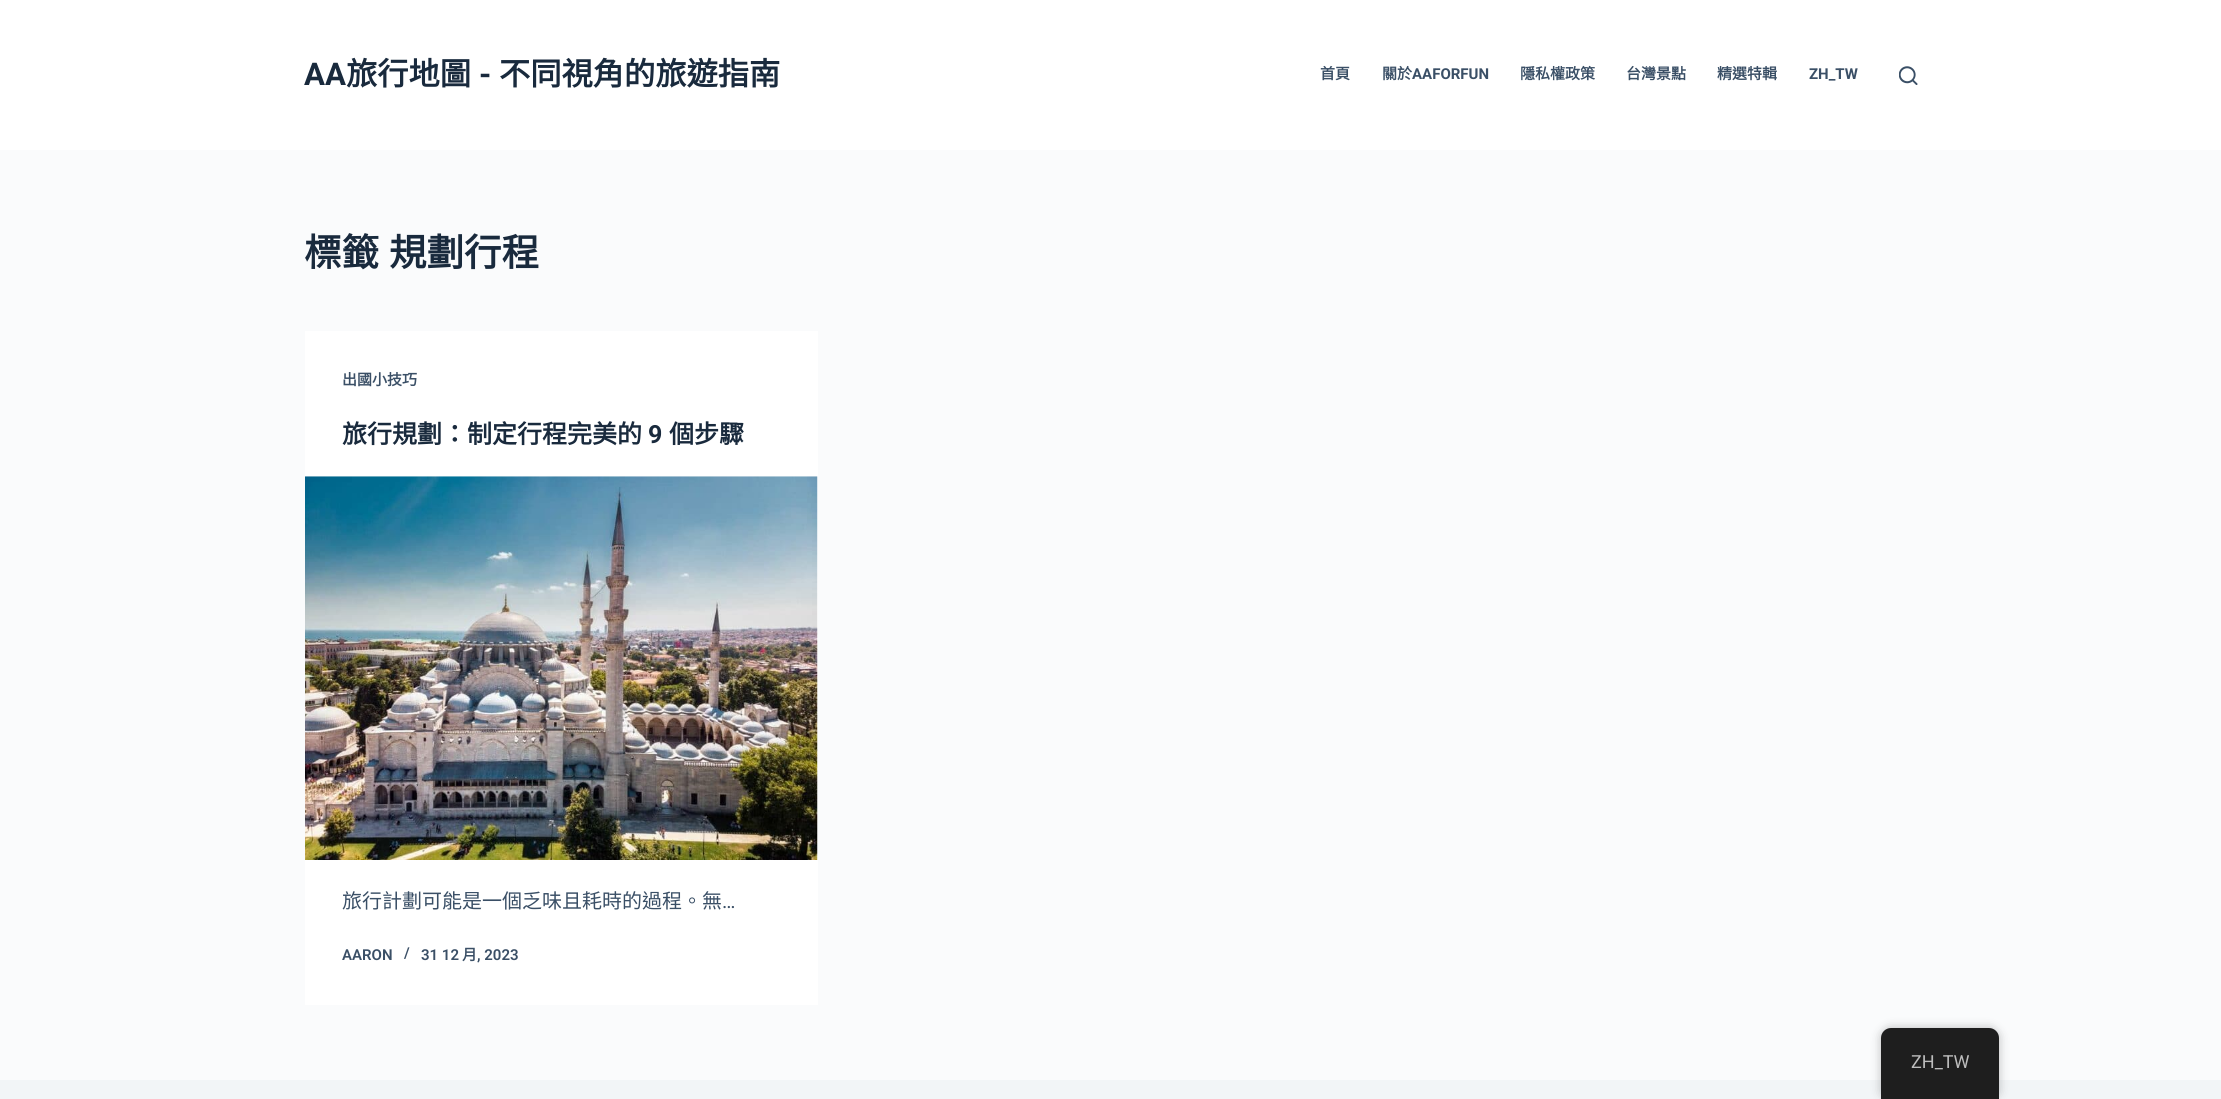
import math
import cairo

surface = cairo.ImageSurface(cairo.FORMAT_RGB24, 2221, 1099)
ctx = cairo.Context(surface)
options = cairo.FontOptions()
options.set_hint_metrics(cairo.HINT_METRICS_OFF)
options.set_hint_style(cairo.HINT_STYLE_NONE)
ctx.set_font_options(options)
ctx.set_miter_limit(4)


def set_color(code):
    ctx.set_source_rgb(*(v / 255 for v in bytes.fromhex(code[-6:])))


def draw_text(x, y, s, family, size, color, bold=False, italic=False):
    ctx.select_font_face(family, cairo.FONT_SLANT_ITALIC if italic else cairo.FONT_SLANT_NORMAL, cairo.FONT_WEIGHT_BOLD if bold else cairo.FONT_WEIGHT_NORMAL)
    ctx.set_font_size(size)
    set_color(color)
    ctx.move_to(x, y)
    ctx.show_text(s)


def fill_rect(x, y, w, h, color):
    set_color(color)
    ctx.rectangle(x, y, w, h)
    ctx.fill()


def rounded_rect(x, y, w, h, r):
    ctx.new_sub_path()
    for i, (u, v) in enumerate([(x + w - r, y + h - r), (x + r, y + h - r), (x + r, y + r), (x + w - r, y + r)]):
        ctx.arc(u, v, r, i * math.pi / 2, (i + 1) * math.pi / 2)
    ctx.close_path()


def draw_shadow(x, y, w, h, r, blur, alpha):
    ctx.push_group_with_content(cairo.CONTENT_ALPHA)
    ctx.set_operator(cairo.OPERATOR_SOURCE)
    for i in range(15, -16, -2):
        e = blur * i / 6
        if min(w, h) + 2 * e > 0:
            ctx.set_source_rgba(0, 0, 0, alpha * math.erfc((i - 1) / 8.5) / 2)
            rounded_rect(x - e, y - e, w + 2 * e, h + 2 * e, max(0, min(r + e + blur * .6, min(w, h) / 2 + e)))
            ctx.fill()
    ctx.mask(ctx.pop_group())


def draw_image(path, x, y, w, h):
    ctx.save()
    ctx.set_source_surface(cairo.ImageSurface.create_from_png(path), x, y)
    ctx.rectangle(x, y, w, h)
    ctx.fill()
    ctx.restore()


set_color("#fafbfc")
ctx.paint()
fill_rect(0, 0, 2221, 150, "#ffffff")
draw_text(304, 85, "AA", "Roboto", 31.25, "#192a3d", bold=True)
draw_text(346, 85, "旅行地圖", "Noto Sans CJK TC", 31.25, "#192a3d", bold=True)
draw_text(479, 85, "-", "Roboto", 31.25, "#192a3d", bold=True)
draw_text(499, 85, "不同視角的旅遊指南", "Noto Sans CJK TC", 31.25, "#192a3d", bold=True)
draw_text(1320, 79, "首頁", "Noto Sans CJK TC", 15, "#3a4f66", bold=True)
draw_text(1382, 79, "關於", "Noto Sans CJK TC", 15, "#3a4f66", bold=True)
draw_text(1412, 79, "AAFORFUN", "Roboto", 15, "#3a4f66", bold=True)
draw_text(1520, 79, "隱私權政策", "Noto Sans CJK TC", 15, "#3a4f66", bold=True)
draw_text(1626, 79, "台灣景點", "Noto Sans CJK TC", 15, "#3a4f66", bold=True)
draw_text(1717, 79, "精選特輯", "Noto Sans CJK TC", 15, "#3a4f66", bold=True)
draw_text(1809, 79, "ZH_TW", "Roboto", 15, "#3a4f66", bold=True)
draw_image("assets/img1.png", 1899, 66, 19, 19)
draw_text(304, 266, "標籤", "Noto Sans CJK TC", 37.5, "#192a3d", bold=True)
draw_text(389, 266, "規劃行程", "Noto Sans CJK TC", 37.5, "#192a3d", bold=True)
fill_rect(305, 331, 513, 674, "#ffffff")
draw_text(342, 385, "出國小技巧", "Noto Sans CJK TC", 15, "#3a4f66", bold=True)
draw_text(342, 443, "旅行規劃：制定行程完美的", "Noto Sans CJK TC", 25, "#192a3d", bold=True)
draw_text(648, 443, "9", "Roboto", 25, "#192a3d", bold=True)
draw_text(669, 443, "個步驟", "Noto Sans CJK TC", 25, "#192a3d", bold=True)
draw_image("assets/img2.png", 305, 476, 513, 384)
draw_text(342, 908, "旅行計劃可能是一個乏味且耗時的過程。無", "Noto Sans CJK TC", 20, "#3a4f66")
draw_text(722, 908, "…", "Roboto", 20, "#3a4f66")
draw_text(342, 960, "AARON", "Roboto SemiBold", 15, "#3a4f66")
draw_text(404, 958, "/", "Roboto SemiBold", 15, "#3a4f66")
draw_text(421, 960, "31 12", "Roboto SemiBold", 15, "#3a4f66")
draw_text(462, 960, "月", "Noto Sans CJK TC", 15, "#3a4f66", bold=True)
draw_text(477, 960, ", 2023", "Roboto SemiBold", 15, "#3a4f66")
fill_rect(0, 1080, 2221, 19, "#f2f5f7")
set_color("#000000")
draw_shadow(1881, 1028, 118, 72, 10, 5, 0.25)
set_color("#1e1e1e")
ctx.new_path()
ctx.move_to(1891, 1028)
ctx.line_to(1989, 1028)
ctx.curve_to(1994.5, 1028, 1999, 1032.5, 1999, 1038)
ctx.line_to(1999, 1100)
ctx.line_to(1881, 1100)
ctx.line_to(1881, 1038)
ctx.curve_to(1881, 1032.5, 1885.5, 1028, 1891, 1028)
ctx.close_path()
ctx.fill()
draw_text(1911, 1068, "ZH_TW", "Roboto", 18, "#bdbdbd")
surface.write_to_png("output.png")
